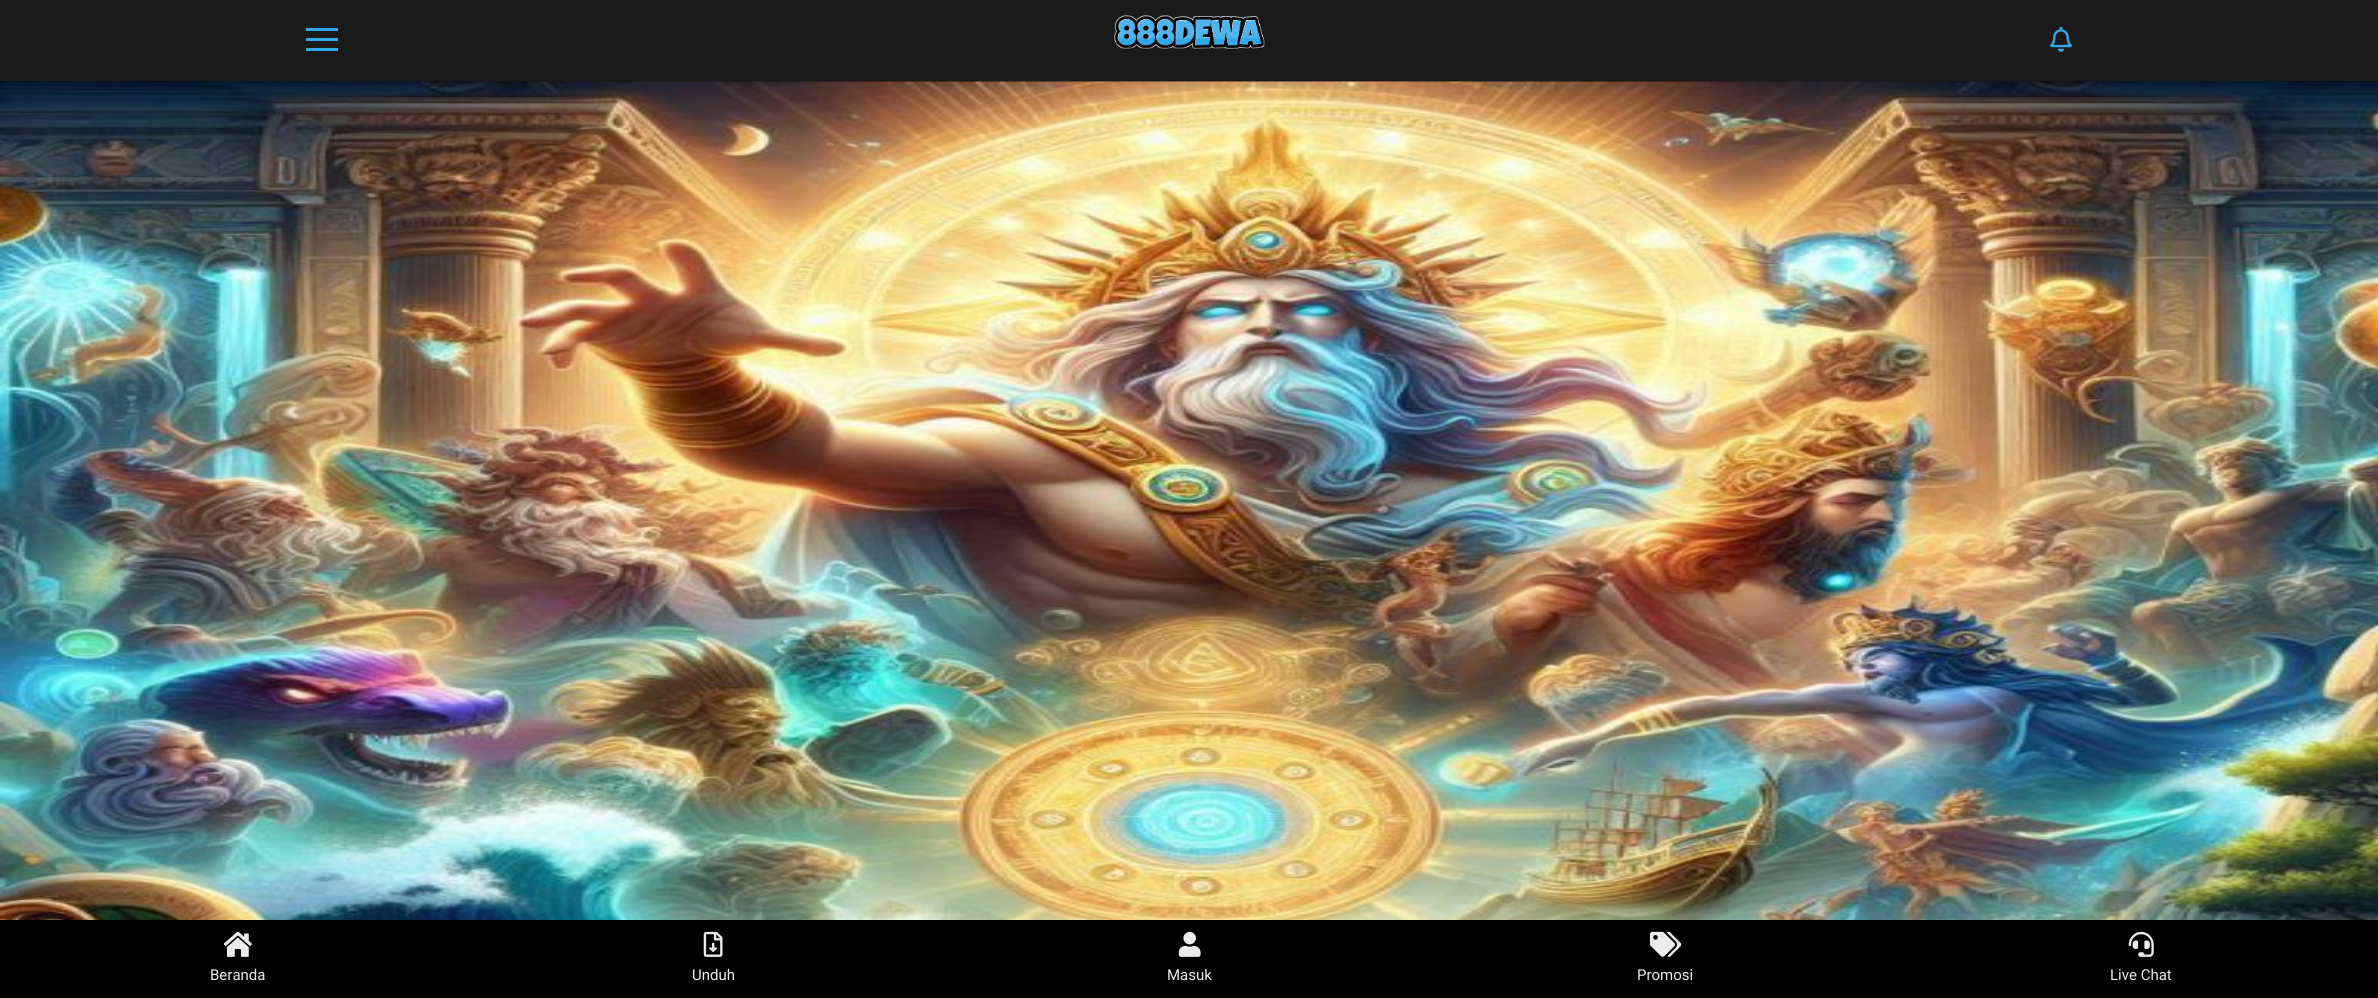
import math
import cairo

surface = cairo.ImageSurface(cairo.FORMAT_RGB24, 2378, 998)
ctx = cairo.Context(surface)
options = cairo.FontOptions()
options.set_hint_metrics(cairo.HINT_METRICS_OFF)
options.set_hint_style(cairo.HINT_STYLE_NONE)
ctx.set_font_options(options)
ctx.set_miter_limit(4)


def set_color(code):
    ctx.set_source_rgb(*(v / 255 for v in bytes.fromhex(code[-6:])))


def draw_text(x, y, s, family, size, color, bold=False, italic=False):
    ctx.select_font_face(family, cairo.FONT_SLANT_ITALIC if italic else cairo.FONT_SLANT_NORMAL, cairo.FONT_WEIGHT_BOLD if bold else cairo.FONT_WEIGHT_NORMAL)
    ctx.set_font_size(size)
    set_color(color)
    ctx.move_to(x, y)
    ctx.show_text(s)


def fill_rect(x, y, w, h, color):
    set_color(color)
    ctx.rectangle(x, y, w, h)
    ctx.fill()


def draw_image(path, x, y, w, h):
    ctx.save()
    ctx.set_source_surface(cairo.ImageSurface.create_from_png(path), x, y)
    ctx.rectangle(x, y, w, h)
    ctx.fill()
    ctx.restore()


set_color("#101010")
ctx.paint()
fill_rect(0, 0, 2378, 81, "#1a1a1a")
fill_rect(306, 28, 32, 3, "#32a8ea")
fill_rect(306, 38, 32, 3, "#32a8ea")
fill_rect(306, 48, 32, 3, "#32a8ea")
draw_image("assets/img1.png", 1114, 15, 152, 35)
draw_image("assets/img2.png", 2050, 26, 22, 26)
draw_image("assets/img3.png", 0, 81, 2378, 839)
fill_rect(0, 920, 2378, 78, "#000000")
draw_image("assets/img4.png", 223, 931, 29, 26)
draw_text(210, 980, "Beranda", "Roboto", 15, "#ececec")
draw_image("assets/img5.png", 703, 931, 20, 26)
draw_text(692, 980, "Unduh", "Roboto", 15, "#ececec")
draw_image("assets/img6.png", 1178, 931, 23, 26)
draw_text(1167, 980, "Masuk", "Roboto", 15, "#ececec")
draw_image("assets/img7.png", 1650, 931, 32, 26)
draw_text(1637, 980, "Promosi", "Roboto", 15, "#ececec")
draw_image("assets/img8.png", 2128, 931, 26, 26)
draw_text(2110, 980, "Live Chat", "Roboto", 15, "#ececec")
surface.write_to_png("output.png")
